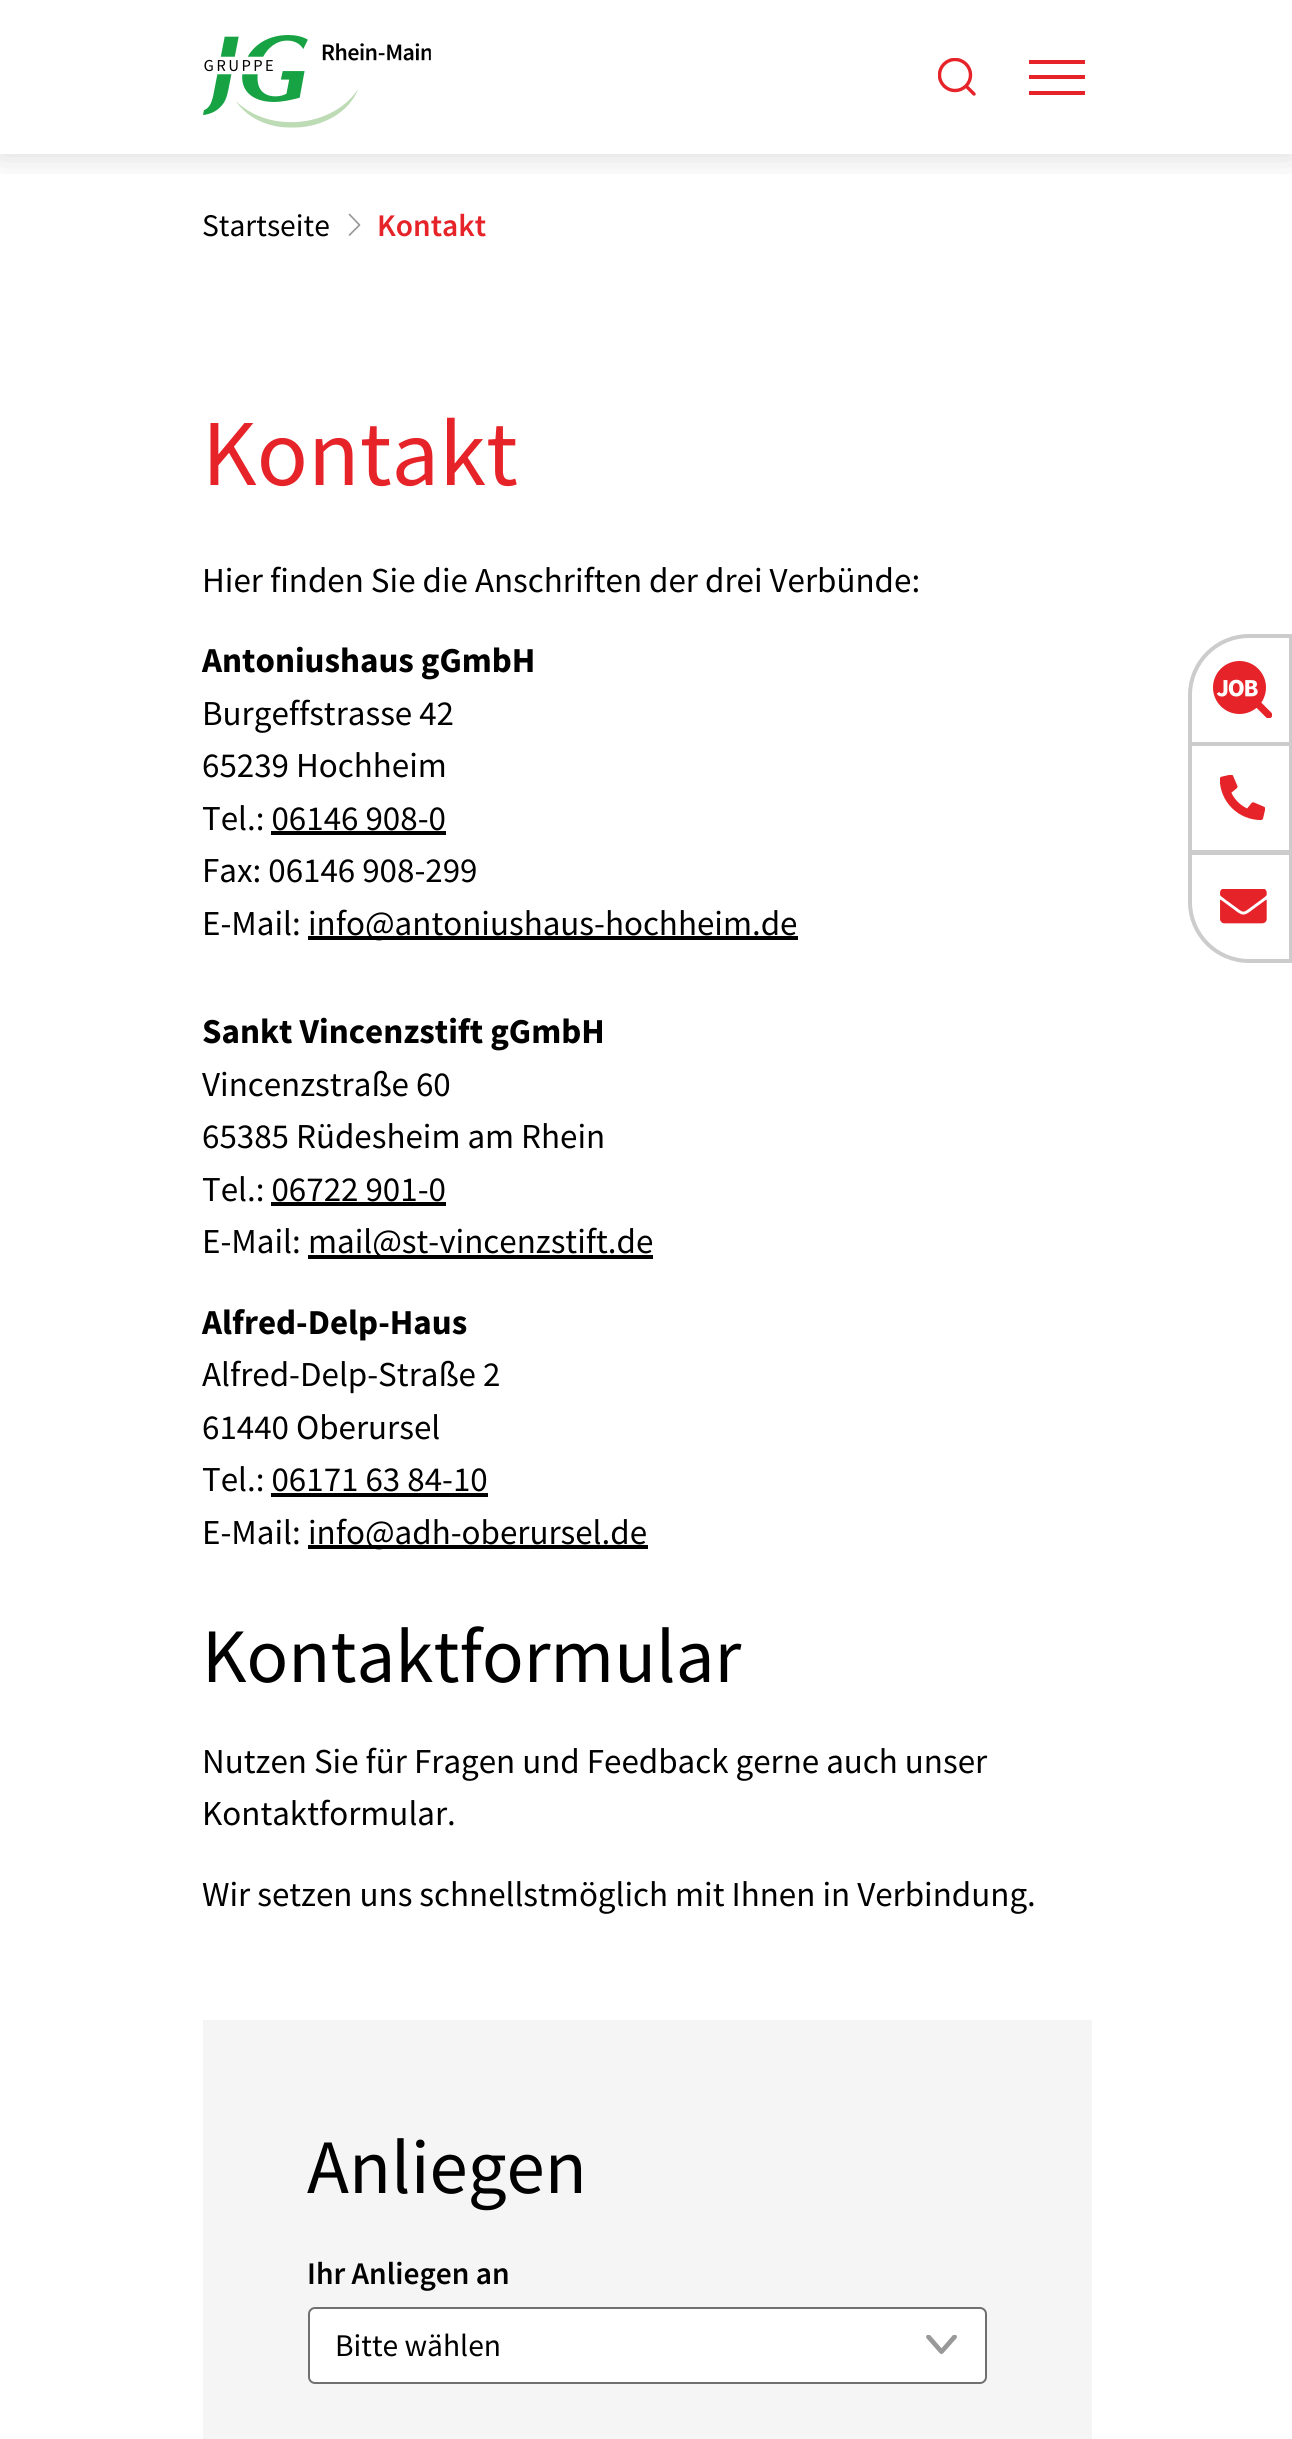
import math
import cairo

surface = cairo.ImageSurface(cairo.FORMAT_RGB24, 1292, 2439)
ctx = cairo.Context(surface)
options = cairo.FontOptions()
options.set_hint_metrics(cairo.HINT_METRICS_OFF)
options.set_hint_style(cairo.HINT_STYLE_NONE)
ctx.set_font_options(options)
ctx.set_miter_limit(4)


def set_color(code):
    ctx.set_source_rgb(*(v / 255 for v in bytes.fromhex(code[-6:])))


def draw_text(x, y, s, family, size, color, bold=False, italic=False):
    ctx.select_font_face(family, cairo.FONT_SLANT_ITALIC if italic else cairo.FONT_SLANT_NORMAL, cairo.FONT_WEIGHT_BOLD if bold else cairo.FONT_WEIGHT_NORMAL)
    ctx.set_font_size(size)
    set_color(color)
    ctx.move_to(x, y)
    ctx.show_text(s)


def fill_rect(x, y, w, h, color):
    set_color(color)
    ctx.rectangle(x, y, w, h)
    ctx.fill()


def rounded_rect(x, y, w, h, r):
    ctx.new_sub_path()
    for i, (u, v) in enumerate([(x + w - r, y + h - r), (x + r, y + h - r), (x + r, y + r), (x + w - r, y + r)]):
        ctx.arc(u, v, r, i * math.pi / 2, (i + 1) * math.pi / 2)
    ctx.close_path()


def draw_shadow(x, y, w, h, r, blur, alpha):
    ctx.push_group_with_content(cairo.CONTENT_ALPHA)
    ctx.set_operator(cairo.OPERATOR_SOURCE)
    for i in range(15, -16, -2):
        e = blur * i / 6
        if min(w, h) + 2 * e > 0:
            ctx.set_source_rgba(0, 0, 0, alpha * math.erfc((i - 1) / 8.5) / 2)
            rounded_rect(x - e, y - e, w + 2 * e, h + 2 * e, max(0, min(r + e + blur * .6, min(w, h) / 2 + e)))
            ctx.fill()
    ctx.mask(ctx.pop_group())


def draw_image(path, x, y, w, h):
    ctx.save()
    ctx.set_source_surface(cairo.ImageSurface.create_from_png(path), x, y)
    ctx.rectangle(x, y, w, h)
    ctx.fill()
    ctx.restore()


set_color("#ffffff")
ctx.paint()
ctx.save()
ctx.rectangle(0, 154, 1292, 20)
ctx.clip()
set_color("#000000")
draw_shadow(0, 0, 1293, 154, 0, 17.5, 0.16)
ctx.restore()
draw_image("assets/img1.png", 203, 35, 228, 93)
ctx.save()
ctx.rectangle(938, 58, 39, 38)
ctx.clip()
ctx.arc(955, 75, 15.5, 0, 2 * math.pi)
set_color("#e52328")
ctx.set_line_width(3.4)
ctx.stroke()
ctx.restore()
ctx.new_path()
ctx.move_to(974, 94)
ctx.line_to(966.5, 86.5)
set_color("#e52328")
ctx.set_line_width(3.4)
ctx.set_line_cap(cairo.LINE_CAP_ROUND)
ctx.set_line_join(cairo.LINE_JOIN_ROUND)
ctx.stroke()
fill_rect(1029, 75, 56, 4, "#e52328")
fill_rect(1029, 60, 56, 4, "#e52328")
fill_rect(1029, 91, 56, 4, "#e52328")
draw_text(202, 236, "Startseite", "Source Sans Pro", 31.5, "#000000")
ctx.new_path()
ctx.move_to(349.5, 235)
ctx.line_to(359.5, 225)
ctx.line_to(349.5, 214.5)
set_color("#999999")
ctx.set_line_width(1.7)
ctx.stroke()
draw_text(377, 236, "Kontakt", "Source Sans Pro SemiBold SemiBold", 31.5, "#e52328")
draw_text(202, 485, "Kontakt", "Source Sans Pro", 94.5, "#e52328")
draw_text(202, 592, "Hier finden Sie die Anschriften der drei Verbünde:", "Source Sans Pro", 35, "#000000")
draw_text(202, 672, "Antoniushaus gGmbH", "Source Sans Pro", 35, "#000000", bold=True)
draw_text(202, 725, "Burgeffstrasse 42", "Source Sans Pro", 35, "#000000")
draw_text(202, 777, "65239 Hochheim", "Source Sans Pro", 35, "#000000")
draw_text(202, 830, "Tel.: 06146 908-0", "Source Sans Pro", 35, "#000000")
fill_rect(271, 831, 175, 4, "#000000")
draw_text(202, 882, "Fax: 06146 908-299", "Source Sans Pro", 35, "#000000")
draw_text(202, 935, "E-Mail:", "Source Sans Pro", 35, "#000000")
fill_rect(308, 936, 490, 4, "#000000")
draw_text(308, 935, "info@antoniushaus-hochheim.de", "Source Sans Pro", 35, "#000000")
draw_text(202, 1043, "Sankt Vincenzstift gGmbH", "Source Sans Pro", 35, "#000000", bold=True)
draw_text(202, 1096, "Vincenzstraße 60", "Source Sans Pro", 35, "#000000")
draw_text(202, 1148, "65385 Rüdesheim am Rhein", "Source Sans Pro", 35, "#000000")
draw_text(202, 1201, "Tel.: 06722 901-0", "Source Sans Pro", 35, "#000000")
fill_rect(271, 1202, 175, 4, "#000000")
draw_text(202, 1253, "E-Mail:", "Source Sans Pro", 35, "#000000")
fill_rect(308, 1255, 345, 4, "#000000")
draw_text(308, 1253, "mail@st-vincenzstift.de", "Source Sans Pro", 35, "#000000")
draw_text(202, 1334, "Alfred-Delp-Haus", "Source Sans Pro", 35, "#000000", bold=True)
draw_text(202, 1386, "Alfred-Delp-Straße 2", "Source Sans Pro", 35, "#000000")
draw_text(202, 1439, "61440 Oberursel", "Source Sans Pro", 35, "#000000")
draw_text(202, 1491, "Tel.: 06171 63 84-10", "Source Sans Pro", 35, "#000000")
fill_rect(271, 1493, 217, 4, "#000000")
draw_text(202, 1544, "E-Mail:", "Source Sans Pro", 35, "#000000")
fill_rect(308, 1545, 340, 4, "#000000")
draw_text(308, 1544, "info@adh-oberursel.de", "Source Sans Pro", 35, "#000000")
draw_text(202, 1682, "Kontaktformular", "Source Sans Pro", 77, "#000000")
draw_text(202, 1773, "Nutzen Sie für Fragen und Feedback gerne auch unser", "Source Sans Pro", 35, "#000000")
draw_text(202, 1825, "Kontaktformular.", "Source Sans Pro", 35, "#000000")
draw_text(202, 1906, "Wir setzen uns schnellstmöglich mit Ihnen in Verbindung.", "Source Sans Pro", 35, "#000000")
fill_rect(203, 2020, 889, 419, "#f5f5f5")
draw_text(307, 2193, "Anliegen", "Source Sans Pro", 77, "#000000")
draw_text(307, 2284, "Ihr Anliegen an", "Source Sans Pro SemiBold SemiBold", 31.5, "#000000")
set_color("#ffffff")
rounded_rect(308, 2307, 679, 77, 7)
ctx.fill()
draw_image("assets/img2.png", 926, 2335, 31, 19)
rounded_rect(309, 2308, 677, 75, 6)
set_color("#707070")
ctx.set_line_width(2)
ctx.set_line_cap(cairo.LINE_CAP_BUTT)
ctx.set_line_join(cairo.LINE_JOIN_MITER)
ctx.stroke()
draw_text(335, 2356, "Bitte wählen", "Source Sans Pro", 31.5, "#000000")
ctx.new_path()
ctx.move_to(1249, 636)
ctx.line_to(1291, 636)
ctx.line_to(1291, 744)
ctx.line_to(1190, 744)
ctx.line_to(1190, 695)
ctx.curve_to(1190, 662.5, 1216.5, 636, 1249, 636)
ctx.close_path()
set_color("#cccccc")
ctx.set_line_width(4)
ctx.stroke()
draw_image("assets/img3.png", 1213, 661, 59, 57)
ctx.rectangle(1190, 744, 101, 108)
ctx.stroke()
draw_image("assets/img4.png", 1220, 775, 45, 46)
set_color("#ffffff")
ctx.new_path()
ctx.move_to(1190, 853)
ctx.line_to(1291, 853)
ctx.line_to(1291, 961)
ctx.line_to(1249, 961)
ctx.curve_to(1216.5, 961, 1190, 934.5, 1190, 902)
ctx.close_path()
ctx.fill_preserve()
set_color("#cccccc")
ctx.stroke()
draw_image("assets/img5.png", 1220, 889, 47, 35)
surface.write_to_png("output.png")
